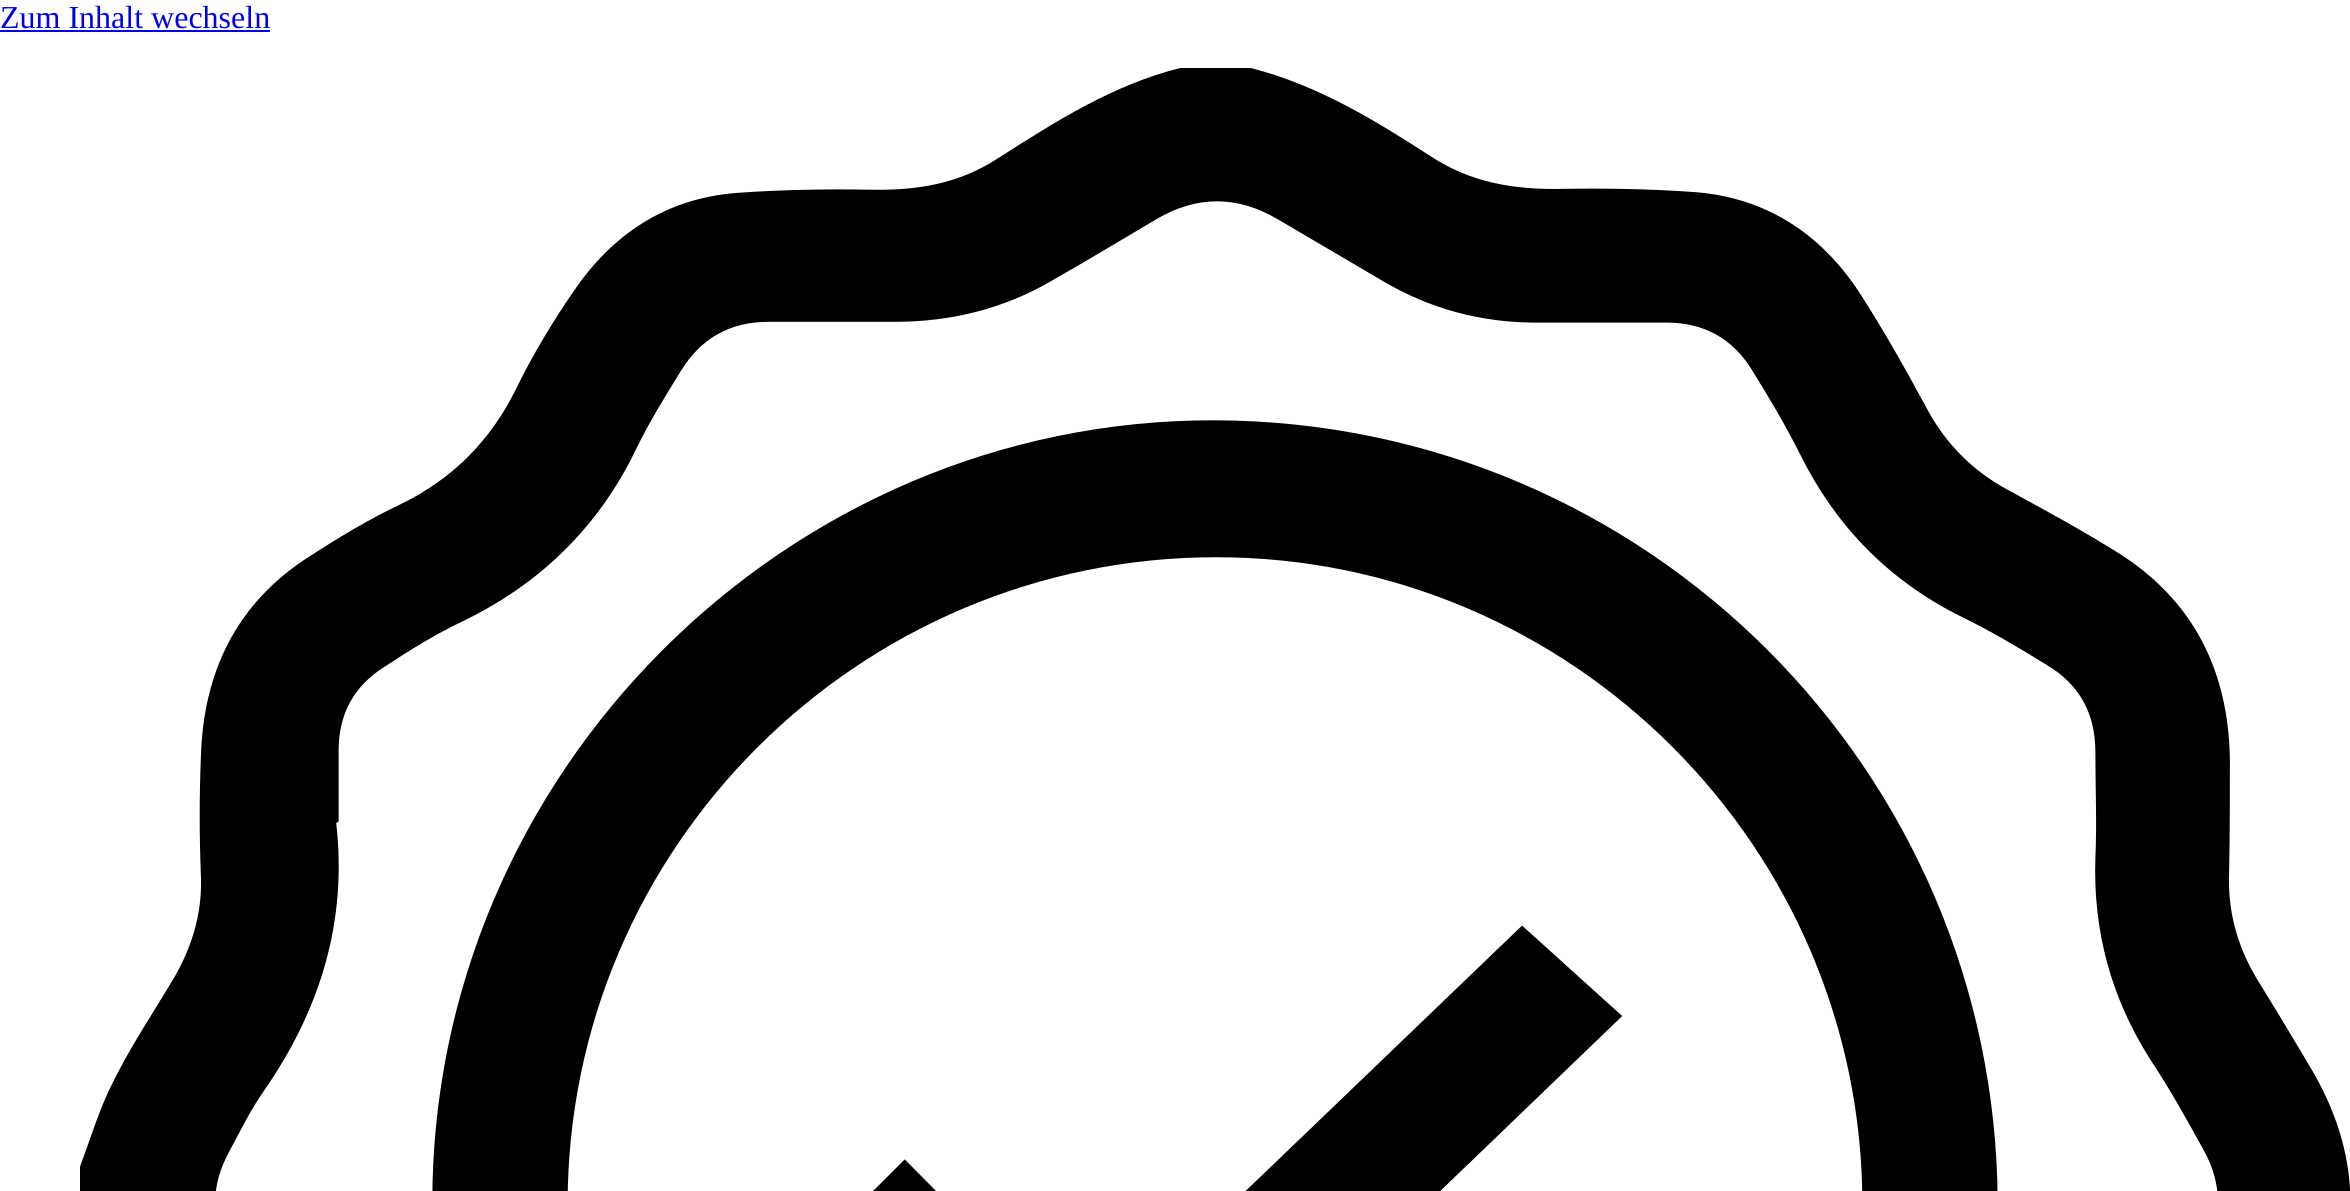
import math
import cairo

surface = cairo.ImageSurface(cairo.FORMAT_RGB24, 2350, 1191)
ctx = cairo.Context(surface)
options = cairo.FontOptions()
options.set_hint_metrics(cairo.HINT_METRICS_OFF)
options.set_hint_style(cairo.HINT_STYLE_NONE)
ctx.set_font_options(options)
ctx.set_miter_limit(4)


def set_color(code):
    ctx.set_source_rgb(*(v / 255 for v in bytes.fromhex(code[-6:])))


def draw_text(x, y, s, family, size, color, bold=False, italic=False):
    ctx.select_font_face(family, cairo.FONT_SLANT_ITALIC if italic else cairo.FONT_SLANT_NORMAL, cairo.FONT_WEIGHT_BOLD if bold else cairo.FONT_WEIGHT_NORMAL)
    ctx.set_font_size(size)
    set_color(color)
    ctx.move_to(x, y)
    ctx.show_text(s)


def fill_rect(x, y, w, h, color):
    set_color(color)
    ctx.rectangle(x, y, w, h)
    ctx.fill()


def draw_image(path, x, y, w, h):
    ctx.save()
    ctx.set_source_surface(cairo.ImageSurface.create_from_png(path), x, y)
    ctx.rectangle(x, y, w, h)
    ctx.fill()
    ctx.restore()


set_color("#ffffff")
ctx.paint()
draw_text(0, 28, "Zum Inhalt wechseln", "Liberation Serif", 32, "#0000ee")
fill_rect(0, 30, 270, 2, "#0000ee")
draw_image("assets/img1.png", 80, 68, 2270, 1123)
surface.write_to_png("output.png")
